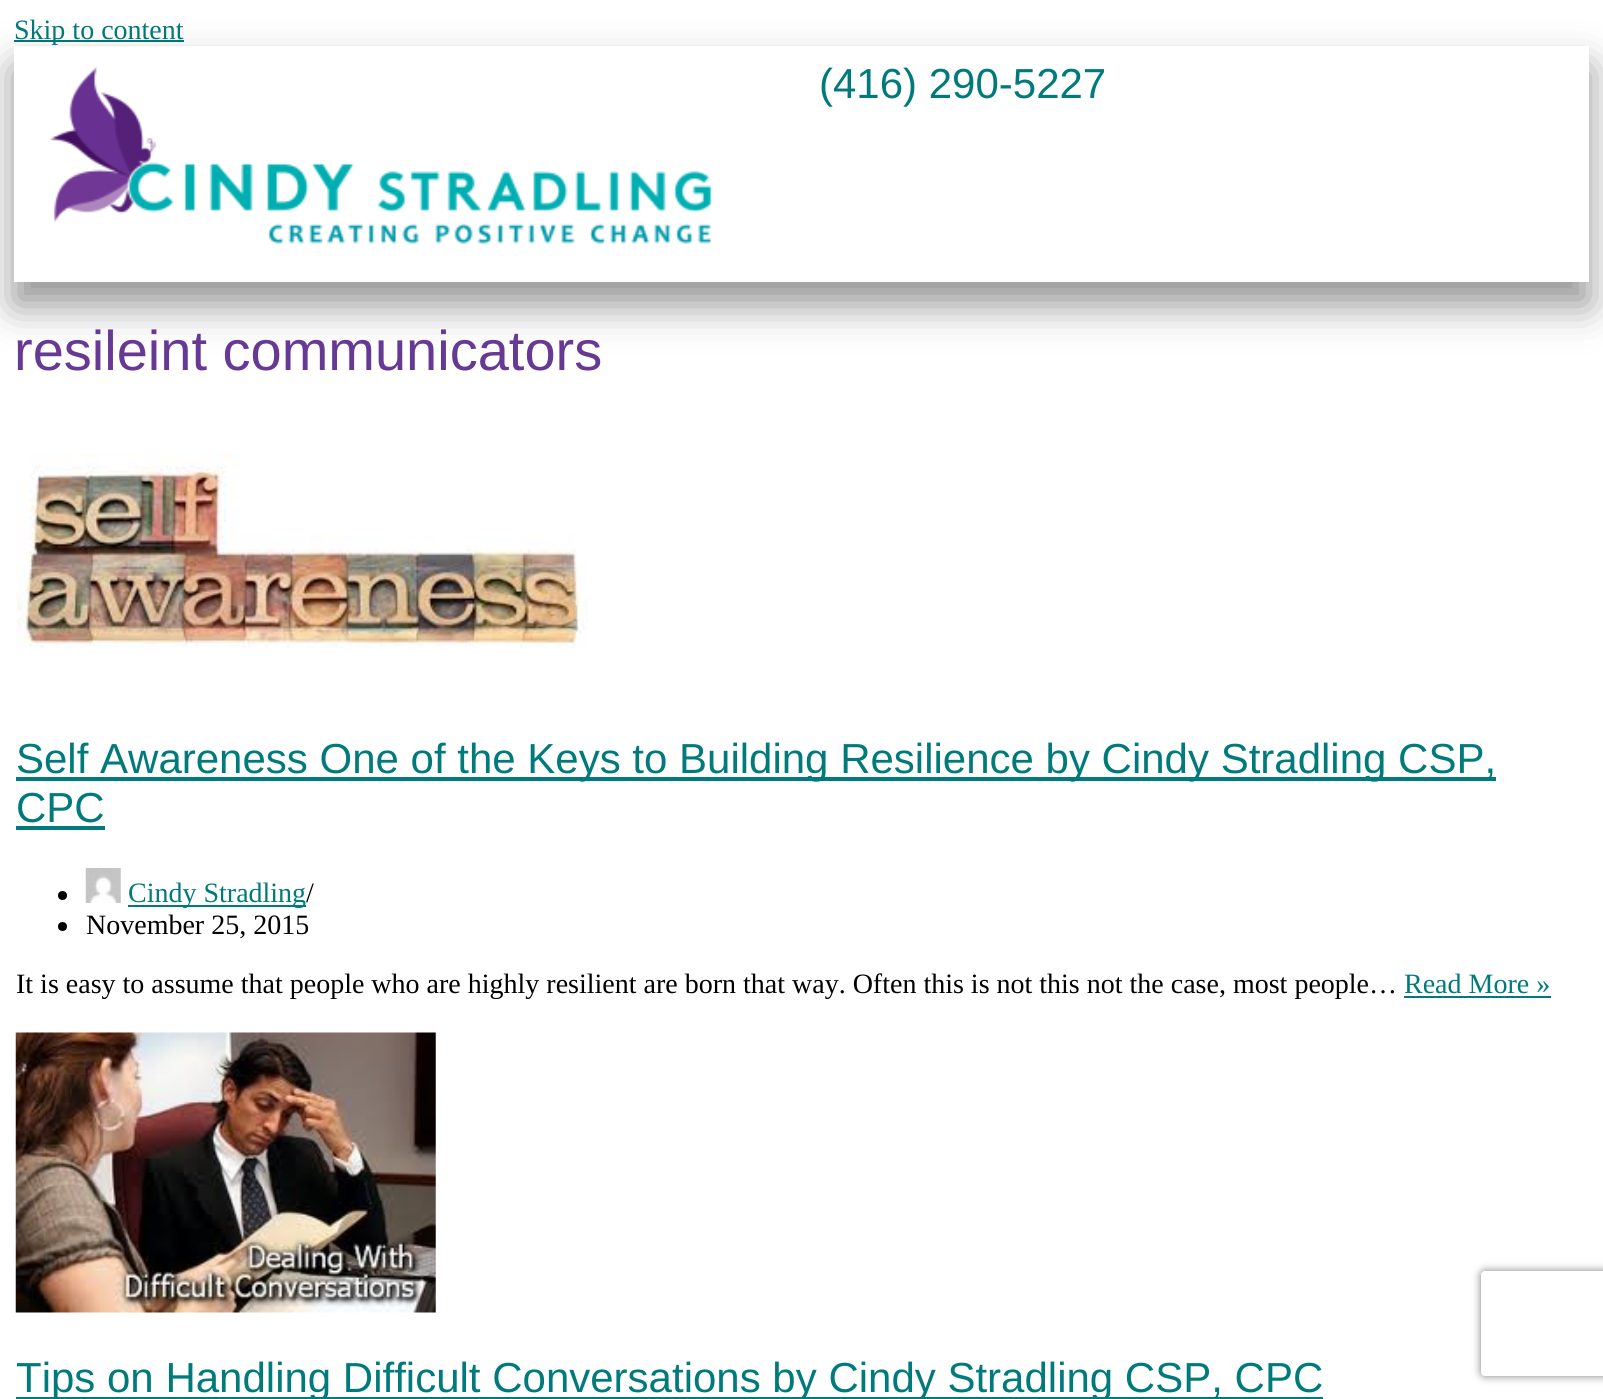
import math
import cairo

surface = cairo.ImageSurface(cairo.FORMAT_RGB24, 1603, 1399)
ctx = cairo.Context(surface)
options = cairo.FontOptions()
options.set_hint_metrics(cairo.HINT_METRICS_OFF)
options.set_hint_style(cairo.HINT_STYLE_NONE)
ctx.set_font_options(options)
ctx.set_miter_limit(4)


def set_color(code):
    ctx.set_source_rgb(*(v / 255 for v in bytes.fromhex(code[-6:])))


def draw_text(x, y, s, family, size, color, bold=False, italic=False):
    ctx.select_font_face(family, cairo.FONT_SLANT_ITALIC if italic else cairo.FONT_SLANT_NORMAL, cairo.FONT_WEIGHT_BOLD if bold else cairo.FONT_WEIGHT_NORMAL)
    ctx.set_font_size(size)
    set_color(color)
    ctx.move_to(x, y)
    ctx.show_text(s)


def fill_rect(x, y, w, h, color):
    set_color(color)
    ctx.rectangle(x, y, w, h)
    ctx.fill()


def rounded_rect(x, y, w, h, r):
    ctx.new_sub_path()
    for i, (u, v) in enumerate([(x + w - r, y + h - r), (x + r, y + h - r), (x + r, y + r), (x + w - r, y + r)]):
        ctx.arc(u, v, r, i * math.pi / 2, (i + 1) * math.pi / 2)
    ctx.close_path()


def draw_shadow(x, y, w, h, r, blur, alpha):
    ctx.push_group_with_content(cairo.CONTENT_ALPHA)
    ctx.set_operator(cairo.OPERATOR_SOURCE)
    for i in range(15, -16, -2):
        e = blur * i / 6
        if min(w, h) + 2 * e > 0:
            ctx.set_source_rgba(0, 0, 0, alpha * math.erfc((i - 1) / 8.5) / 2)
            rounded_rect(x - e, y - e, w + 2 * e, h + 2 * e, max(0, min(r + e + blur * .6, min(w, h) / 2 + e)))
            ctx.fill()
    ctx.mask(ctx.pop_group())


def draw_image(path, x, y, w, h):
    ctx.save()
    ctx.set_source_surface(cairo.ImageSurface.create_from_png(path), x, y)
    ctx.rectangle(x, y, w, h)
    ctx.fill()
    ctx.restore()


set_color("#ffffff")
ctx.paint()
fill_rect(14, 40, 170, 2, "#007a7b")
draw_text(14, 39, "Skip to content", "Liberation Serif", 28, "#007a7b")
ctx.save()
ctx.set_fill_rule(cairo.FILL_RULE_EVEN_ODD)
ctx.new_path()
ctx.move_to(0, 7)
ctx.line_to(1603, 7)
ctx.line_to(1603, 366)
ctx.line_to(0, 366)
ctx.close_path()
ctx.move_to(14, 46)
ctx.line_to(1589, 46)
ctx.line_to(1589, 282)
ctx.line_to(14, 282)
ctx.close_path()
ctx.clip()
set_color("#000000")
draw_shadow(14, 68, 1575, 237, 0, 20, 0.42)
ctx.restore()
draw_image("assets/img1.png", 49, 66, 664, 178)
draw_text(819, 98, "(416) 290-5227", "Liberation Sans", 42, "#007a7b")
draw_text(14, 370, "resileint communicators", "Liberation Sans", 56, "#663994")
draw_image("assets/img2.png", 16, 452, 572, 196)
fill_rect(16, 777, 1480, 4, "#007a7b")
draw_text(16, 773, "Self Awareness One of the Keys to Building Resilience by Cindy Stradling CSP,", "Liberation Sans", 42, "#007a7b")
draw_text(16, 822, "CPC", "Liberation Sans", 42, "#007a7b")
fill_rect(16, 826, 89, 4, "#007a7b")
set_color("#000000")
ctx.new_path()
ctx.arc(62.5, 895.5, 4.5, 0, 2 * math.pi)
ctx.fill()
draw_image("assets/img3.png", 85, 868, 36, 35)
fill_rect(128, 905, 178, 2, "#007a7b")
draw_text(128, 902, "Cindy Stradling", "Liberation Serif", 28, "#007a7b")
draw_text(306, 902, "/", "Liberation Serif", 28, "#000000")
ctx.new_path()
ctx.arc(62.5, 926.5, 4.5, 0, 2 * math.pi)
ctx.fill()
draw_text(86, 934, "November 25, 2015", "Liberation Serif", 28, "#000000")
draw_text(16, 993, "It is easy to assume that people who are highly resilient are born that way. Often this is not this not the case, most people…", "Liberation Serif", 28, "#000000")
draw_text(1404, 993, "Read More »", "Liberation Serif", 28, "#007a7b")
fill_rect(1404, 996, 147, 2, "#007a7b")
draw_image("assets/img4.png", 15, 1032, 421, 281)
fill_rect(16, 1397, 1307, 2, "#007a7b")
draw_text(16, 1392, "Tips on Handling Difficult Conversations by Cindy Stradling CSP, CPC", "Liberation Sans", 42, "#007a7b")
ctx.save()
ctx.set_fill_rule(cairo.FILL_RULE_EVEN_ODD)
ctx.new_path()
ctx.move_to(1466, 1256)
ctx.line_to(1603, 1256)
ctx.line_to(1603, 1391)
ctx.line_to(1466, 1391)
ctx.close_path()
ctx.move_to(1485, 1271)
ctx.line_to(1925, 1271)
ctx.curve_to(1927, 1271, 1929, 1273, 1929, 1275)
ctx.line_to(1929, 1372)
ctx.curve_to(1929, 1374, 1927, 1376, 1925, 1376)
ctx.line_to(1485, 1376)
ctx.curve_to(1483, 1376, 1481, 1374, 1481, 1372)
ctx.line_to(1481, 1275)
ctx.curve_to(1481, 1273, 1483, 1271, 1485, 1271)
ctx.close_path()
ctx.clip()
set_color("#808080")
draw_shadow(1481, 1271, 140, 105, 4, 4.5, 1)
ctx.restore()
surface.write_to_png("output.png")
